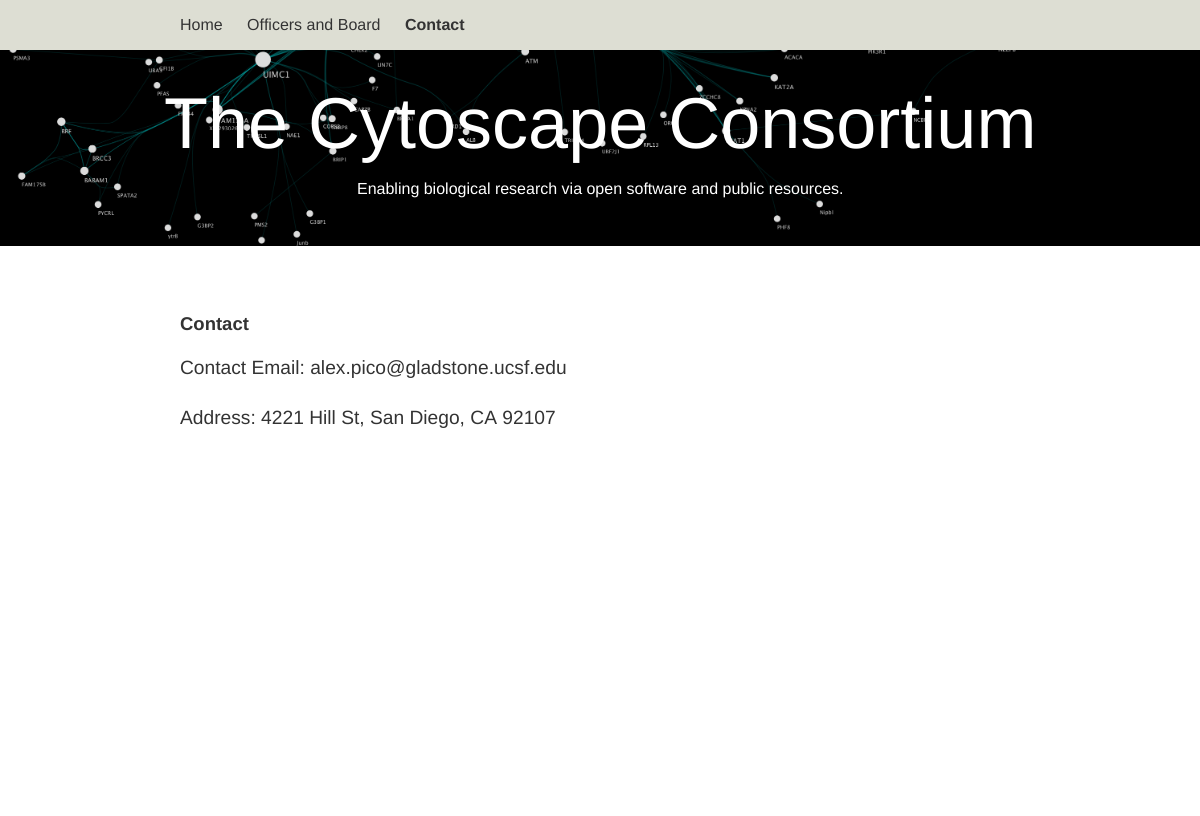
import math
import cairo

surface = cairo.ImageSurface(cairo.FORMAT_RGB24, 1200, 816)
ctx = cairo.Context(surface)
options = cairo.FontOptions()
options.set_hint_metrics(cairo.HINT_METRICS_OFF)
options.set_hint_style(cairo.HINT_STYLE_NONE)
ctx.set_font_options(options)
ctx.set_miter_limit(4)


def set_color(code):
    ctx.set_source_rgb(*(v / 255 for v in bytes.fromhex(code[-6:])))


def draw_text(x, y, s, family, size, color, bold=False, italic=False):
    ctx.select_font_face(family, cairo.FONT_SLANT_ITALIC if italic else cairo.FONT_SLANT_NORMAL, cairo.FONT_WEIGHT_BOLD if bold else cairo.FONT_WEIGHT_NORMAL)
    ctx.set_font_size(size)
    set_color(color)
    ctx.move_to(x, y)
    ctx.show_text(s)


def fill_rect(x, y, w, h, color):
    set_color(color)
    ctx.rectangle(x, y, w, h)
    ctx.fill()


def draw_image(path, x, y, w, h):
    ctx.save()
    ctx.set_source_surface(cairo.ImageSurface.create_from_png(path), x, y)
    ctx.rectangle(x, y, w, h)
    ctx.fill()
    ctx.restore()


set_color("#ffffff")
ctx.paint()
fill_rect(0, 0, 1200, 50, "#ddded3")
draw_text(180, 30, "Home", "Liberation Sans", 16, "#333333")
draw_text(247, 30, "Officers and Board", "Liberation Sans", 16, "#333333")
draw_text(405, 30, "Contact", "Liberation Sans", 16, "#333333", bold=True)
draw_image("assets/img1.png", 0, 50, 1200, 196)
draw_text(164, 148, "The Cytoscape Consortium", "Liberation Sans", 72, "#ffffff")
draw_text(357, 194, "Enabling biological research via open software and public resources.", "Liberation Sans", 16, "#ffffff")
draw_text(180, 330, "Contact", "Liberation Sans", 18.5, "#333333", bold=True)
draw_text(180, 374, "Contact Email: alex.pico@gladstone.ucsf.edu", "Liberation Sans", 19.2, "#333333")
draw_text(180, 424, "Address: 4221 Hill St, San Diego, CA 92107", "Liberation Sans", 19.2, "#333333")
surface.write_to_png("output.png")
